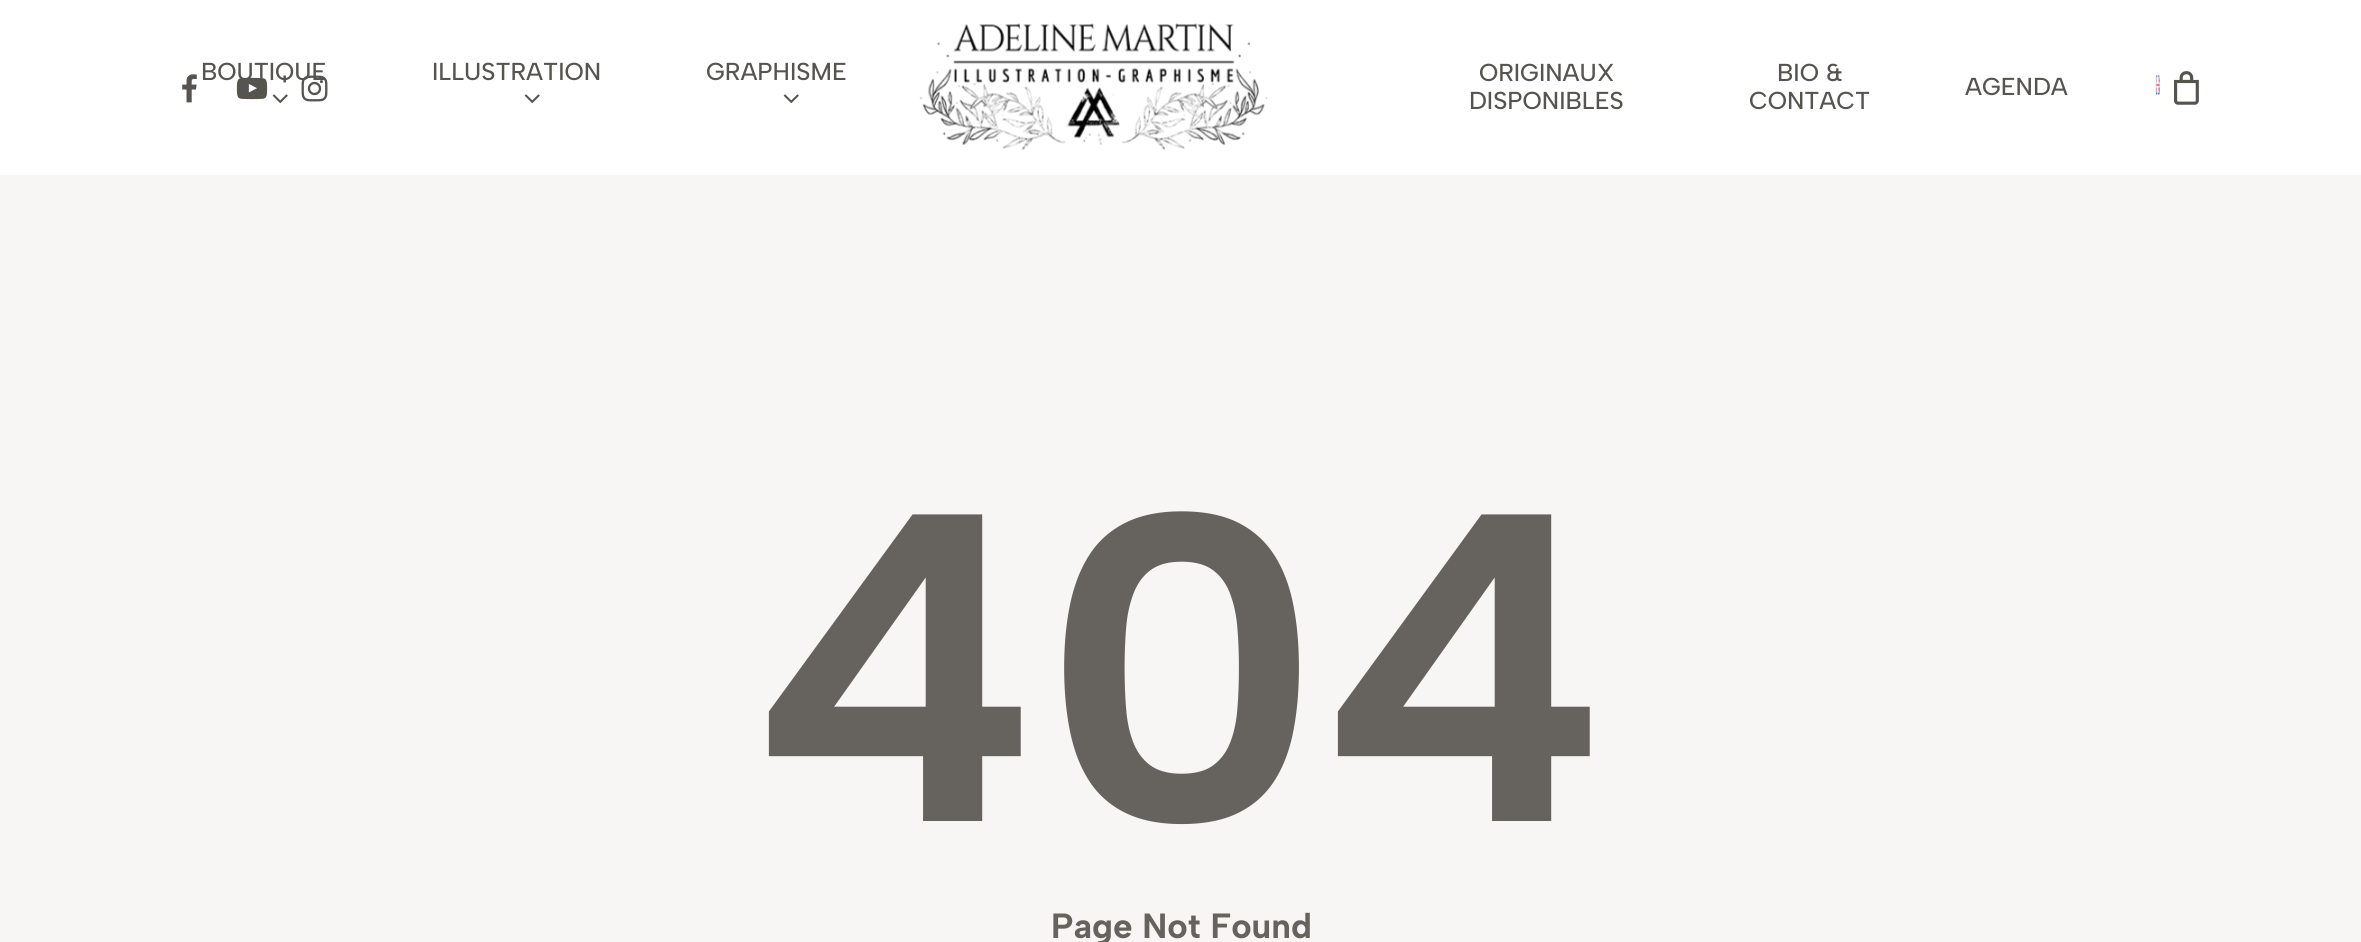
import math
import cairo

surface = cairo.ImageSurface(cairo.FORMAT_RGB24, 2361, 942)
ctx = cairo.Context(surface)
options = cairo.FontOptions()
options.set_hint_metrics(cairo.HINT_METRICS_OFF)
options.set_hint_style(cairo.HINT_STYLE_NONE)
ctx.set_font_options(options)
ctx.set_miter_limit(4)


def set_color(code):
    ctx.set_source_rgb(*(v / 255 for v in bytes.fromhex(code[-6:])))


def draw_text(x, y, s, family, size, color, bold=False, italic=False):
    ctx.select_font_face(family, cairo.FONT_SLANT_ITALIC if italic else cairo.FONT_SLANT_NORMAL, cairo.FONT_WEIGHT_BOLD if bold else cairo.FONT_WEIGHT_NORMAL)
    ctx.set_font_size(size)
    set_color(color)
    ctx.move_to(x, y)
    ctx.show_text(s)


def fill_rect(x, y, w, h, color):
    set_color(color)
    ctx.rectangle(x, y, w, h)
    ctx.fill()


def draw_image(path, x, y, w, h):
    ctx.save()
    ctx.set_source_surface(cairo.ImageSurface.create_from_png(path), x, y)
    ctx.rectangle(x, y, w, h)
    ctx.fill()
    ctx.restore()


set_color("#f7f6f4")
ctx.paint()
fill_rect(0, 0, 2361, 175, "#ffffff")
draw_image("assets/img1.png", 919, 23, 348, 128)
draw_text(201, 80, "BOUTIQUE", "Albert Sans Medium", 24.5, "#56544f")
draw_image("assets/img2.png", 272, 94, 16, 10)
draw_text(432, 80, "ILLUSTRATION", "Albert Sans Medium", 24.5, "#56544f")
draw_image("assets/img2.png", 524, 94, 16, 10)
draw_text(706, 80, "GRAPHISME", "Albert Sans Medium", 24.5, "#56544f")
draw_image("assets/img2.png", 783, 94, 16, 10)
draw_text(1479, 81, "ORIGINAUX", "Albert Sans Medium", 24.5, "#56544f")
draw_text(1469, 109, "DISPONIBLES", "Albert Sans Medium", 24.5, "#56544f")
draw_text(1777, 81, "BIO &", "Albert Sans Medium", 24.5, "#56544f")
draw_text(1749, 109, "CONTACT", "Albert Sans Medium", 24.5, "#56544f")
draw_image("assets/img3.png", 182, 74, 15, 29)
draw_image("assets/img4.png", 236, 77, 32, 23)
draw_image("assets/img5.png", 301, 75, 27, 27)
draw_text(1965, 95, "AGENDA", "Albert Sans Medium", 24.5, "#56544f")
draw_image("assets/img6.png", 2155, 75, 5, 20)
draw_image("assets/img7.png", 2174, 71, 25, 34)
draw_text(754, 821, "404", "Albert Sans", 438, "#66635f", bold=True)
draw_text(1051, 938, "Page Not Found", "Albert Sans", 35, "#66635f", bold=True)
surface.write_to_png("output.png")
